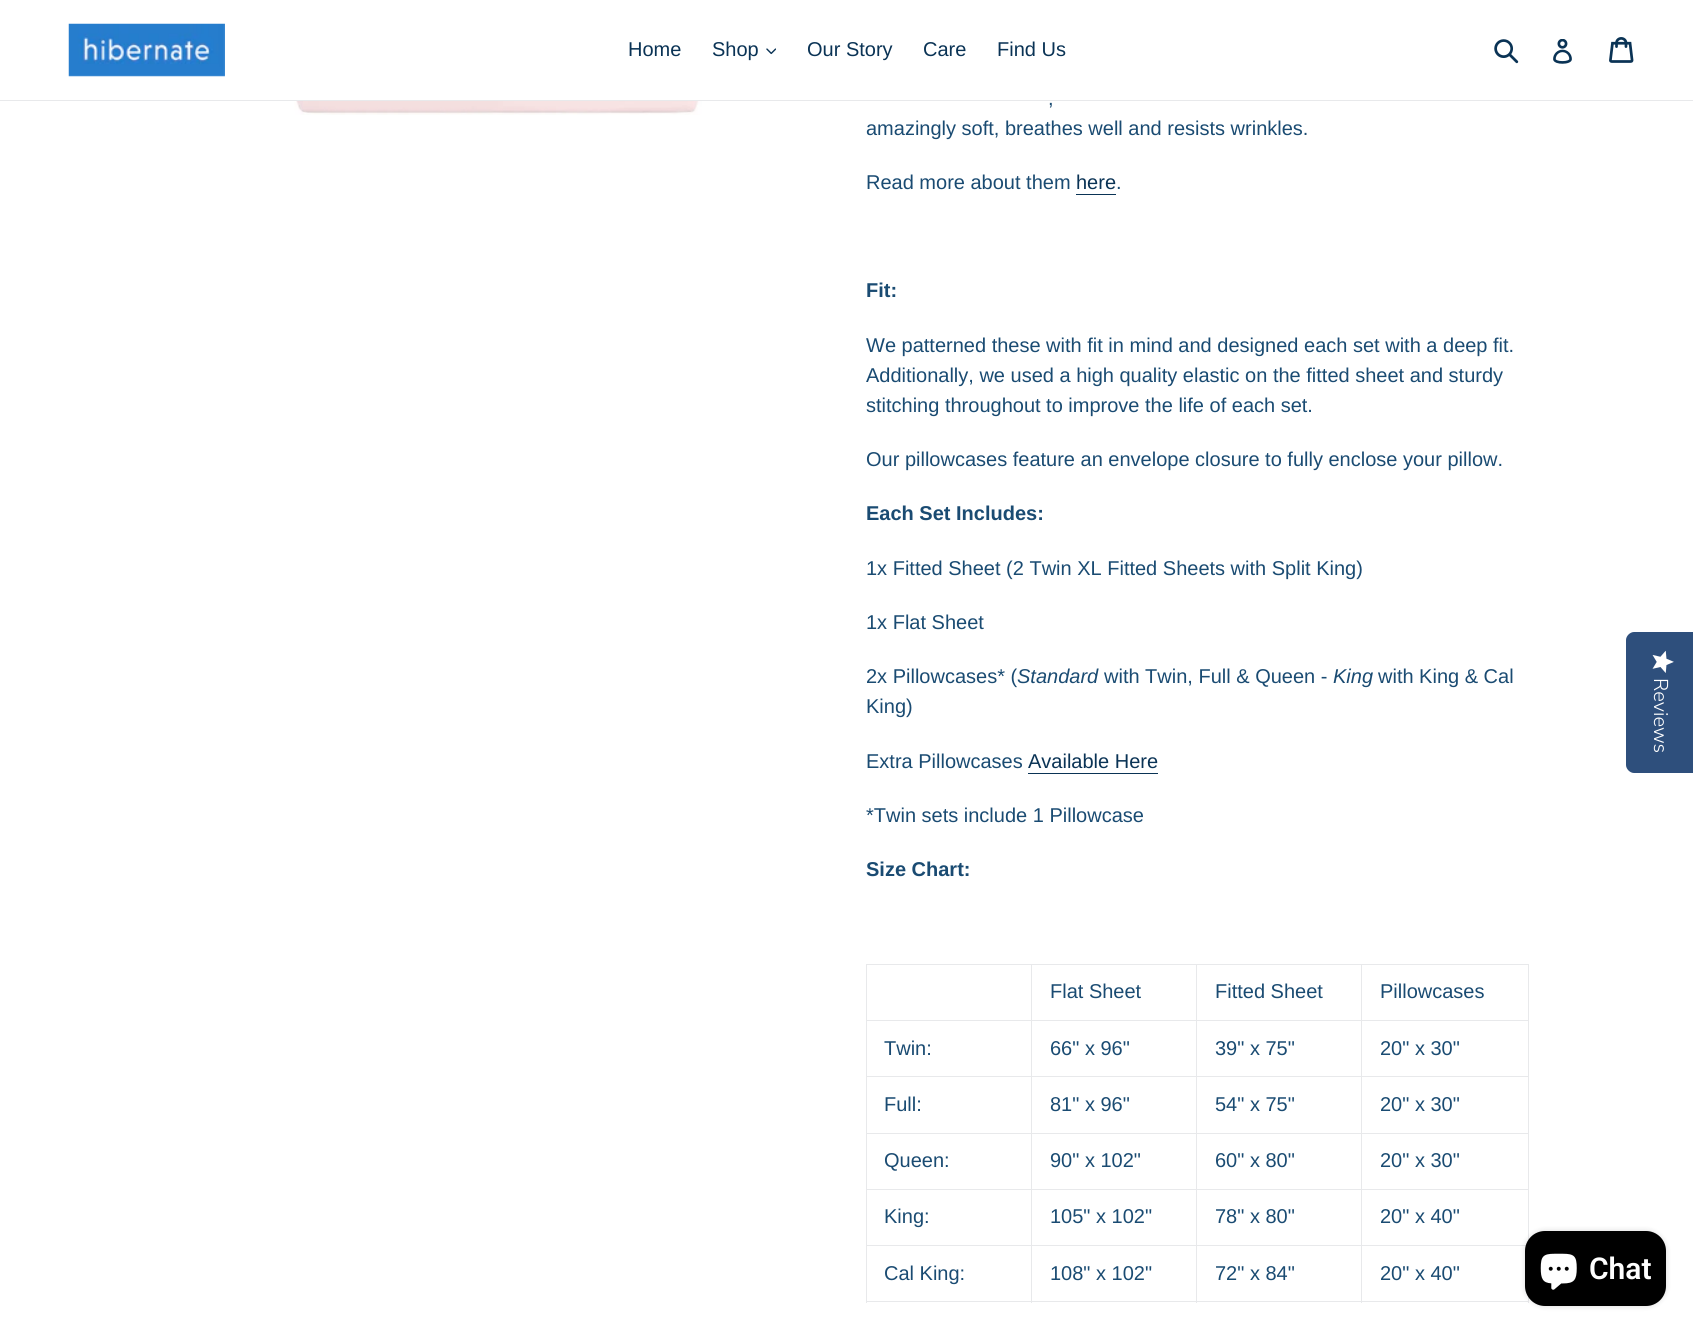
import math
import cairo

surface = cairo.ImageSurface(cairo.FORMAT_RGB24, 1693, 1332)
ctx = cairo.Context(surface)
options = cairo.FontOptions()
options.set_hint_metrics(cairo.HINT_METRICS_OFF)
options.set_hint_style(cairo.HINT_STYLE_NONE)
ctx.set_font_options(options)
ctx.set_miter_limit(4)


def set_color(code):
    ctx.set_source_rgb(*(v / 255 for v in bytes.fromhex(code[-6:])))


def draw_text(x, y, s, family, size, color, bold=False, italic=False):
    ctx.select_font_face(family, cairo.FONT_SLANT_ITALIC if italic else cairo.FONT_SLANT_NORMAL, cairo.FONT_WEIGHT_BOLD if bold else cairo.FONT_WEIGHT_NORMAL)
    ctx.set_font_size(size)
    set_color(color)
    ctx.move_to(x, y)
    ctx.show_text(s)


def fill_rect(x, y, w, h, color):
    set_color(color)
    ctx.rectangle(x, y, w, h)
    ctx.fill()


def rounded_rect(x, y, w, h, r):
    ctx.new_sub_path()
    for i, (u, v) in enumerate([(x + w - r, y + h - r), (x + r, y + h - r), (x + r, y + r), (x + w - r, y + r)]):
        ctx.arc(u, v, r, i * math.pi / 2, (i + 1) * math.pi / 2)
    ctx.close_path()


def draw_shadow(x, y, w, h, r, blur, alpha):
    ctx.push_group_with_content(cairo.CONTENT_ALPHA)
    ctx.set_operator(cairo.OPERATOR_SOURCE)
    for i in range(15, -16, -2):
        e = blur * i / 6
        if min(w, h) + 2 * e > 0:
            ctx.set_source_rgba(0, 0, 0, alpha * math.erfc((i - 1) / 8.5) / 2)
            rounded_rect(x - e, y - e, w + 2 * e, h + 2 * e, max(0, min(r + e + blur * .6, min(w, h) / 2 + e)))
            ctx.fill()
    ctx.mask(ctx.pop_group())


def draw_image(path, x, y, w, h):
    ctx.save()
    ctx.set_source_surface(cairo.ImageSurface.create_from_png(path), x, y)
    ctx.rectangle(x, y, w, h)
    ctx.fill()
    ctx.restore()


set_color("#ffffff")
ctx.paint()
fill_rect(0, 100, 1693, 1, "#e8e9eb")
draw_image("assets/img1.png", 68, 23, 157, 54)
draw_text(628, 56, "Home", "Liberation Sans", 20, "#0a3355")
draw_text(712, 56, "Shop", "Liberation Sans", 20, "#0a3355")
draw_image("assets/img2.png", 766, 48, 10, 7)
draw_text(807, 56, "Our Story", "Liberation Sans", 20, "#0a3355")
draw_text(923, 56, "Care", "Liberation Sans", 20, "#0a3355")
draw_text(997, 56, "Find Us", "Liberation Sans", 20, "#0a3355")
draw_image("assets/img3.png", 1494, 39, 25, 25)
draw_image("assets/img4.png", 1553, 39, 19, 25)
draw_image("assets/img5.png", 1609, 37, 25, 26)
draw_image("assets/img6.png", 294, 101, 408, 14)
draw_text(1048, 105, ",", "Liberation Sans", 20, "#1a4b72")
draw_text(866, 135, "amazingly soft, breathes well and resists wrinkles.", "Liberation Sans", 20, "#1a4b72")
draw_text(866, 189, "Read more about them", "Liberation Sans", 20, "#1a4b72")
draw_text(1076, 189, "here", "Liberation Sans", 20, "#0a3355")
fill_rect(1076, 194, 40, 1, "#0a3355")
draw_text(1116, 189, ".", "Liberation Sans", 20, "#1a4b72")
draw_text(866, 297, "Fit:", "Liberation Sans", 20, "#1a4b72", bold=True)
draw_text(866, 352, "We patterned these with fit in mind and designed each set with a deep fit.", "Liberation Sans", 20, "#1a4b72")
draw_text(866, 382, "Additionally, we used a high quality elastic on the fitted sheet and sturdy", "Liberation Sans", 20, "#1a4b72")
draw_text(866, 412, "stitching throughout to improve the life of each set.", "Liberation Sans", 20, "#1a4b72")
draw_text(866, 466, "Our pillowcases feature an envelope closure to fully enclose your pillow.", "Liberation Sans", 20, "#1a4b72")
draw_text(866, 520, "Each Set Includes:", "Liberation Sans", 20, "#1a4b72", bold=True)
draw_text(866, 575, "1x Fitted Sheet (2 Twin XL Fitted Sheets with Split King)", "Liberation Sans", 20, "#1a4b72")
draw_text(866, 629, "1x Flat Sheet", "Liberation Sans", 20, "#1a4b72")
draw_text(866, 683, "2x Pillowcases* (", "Liberation Sans", 20, "#1a4b72")
draw_text(1017, 683, "Standard", "Liberation Sans", 20, "#1a4b72", italic=True)
draw_text(1104, 683, "with Twin, Full & Queen -", "Liberation Sans", 20, "#1a4b72")
draw_text(1333, 683, "King", "Liberation Sans", 20, "#1a4b72", italic=True)
draw_text(1378, 683, "with King & Cal", "Liberation Sans", 20, "#1a4b72")
draw_text(866, 713, "King)", "Liberation Sans", 20, "#1a4b72")
draw_text(866, 768, "Extra Pillowcases", "Liberation Sans", 20, "#1a4b72")
draw_text(1028, 768, "Available Here", "Liberation Sans", 20, "#0a3355")
fill_rect(1028, 773, 130, 1, "#0a3355")
draw_text(866, 822, "*Twin sets include 1 Pillowcase", "Liberation Sans", 20, "#1a4b72")
draw_text(866, 876, "Size Chart:", "Liberation Sans", 20, "#1a4b72", bold=True)
fill_rect(1361, 964, 168, 1, "#e8e9eb")
fill_rect(1361, 1020, 168, 1, "#e8e9eb")
fill_rect(1361, 1076, 168, 1, "#e8e9eb")
fill_rect(1361, 1133, 168, 1, "#e8e9eb")
fill_rect(1361, 1189, 168, 1, "#e8e9eb")
fill_rect(1361, 1245, 168, 1, "#e8e9eb")
fill_rect(1528, 1296, 1, 7, "#e8e9eb")
fill_rect(1361, 1301, 168, 1, "#e8e9eb")
fill_rect(1361, 1245, 1, 58, "#e8e9eb")
fill_rect(1196, 1245, 167, 1, "#e8e9eb")
fill_rect(1361, 1189, 1, 57, "#e8e9eb")
fill_rect(1196, 1189, 167, 1, "#e8e9eb")
fill_rect(1361, 1133, 1, 57, "#e8e9eb")
fill_rect(1196, 1133, 167, 1, "#e8e9eb")
fill_rect(1361, 1076, 1, 58, "#e8e9eb")
fill_rect(1196, 1076, 167, 1, "#e8e9eb")
fill_rect(1361, 1020, 1, 58, "#e8e9eb")
fill_rect(1196, 1020, 167, 1, "#e8e9eb")
fill_rect(1361, 964, 1, 57, "#e8e9eb")
fill_rect(1196, 964, 167, 1, "#e8e9eb")
fill_rect(1196, 1301, 167, 1, "#e8e9eb")
fill_rect(1196, 1245, 1, 58, "#e8e9eb")
fill_rect(1031, 1245, 167, 1, "#e8e9eb")
fill_rect(1196, 1189, 1, 57, "#e8e9eb")
fill_rect(1031, 1189, 167, 1, "#e8e9eb")
fill_rect(1196, 1133, 1, 57, "#e8e9eb")
fill_rect(1031, 1133, 167, 1, "#e8e9eb")
fill_rect(1196, 1076, 1, 58, "#e8e9eb")
fill_rect(1031, 1076, 167, 1, "#e8e9eb")
fill_rect(1196, 1020, 1, 58, "#e8e9eb")
fill_rect(1031, 1020, 167, 1, "#e8e9eb")
fill_rect(1196, 964, 1, 57, "#e8e9eb")
fill_rect(1031, 964, 167, 1, "#e8e9eb")
fill_rect(1031, 1301, 167, 1, "#e8e9eb")
fill_rect(1031, 1245, 1, 58, "#e8e9eb")
fill_rect(866, 1245, 167, 1, "#e8e9eb")
fill_rect(1031, 1189, 1, 57, "#e8e9eb")
fill_rect(866, 1189, 167, 1, "#e8e9eb")
fill_rect(1031, 1133, 1, 57, "#e8e9eb")
fill_rect(866, 1133, 167, 1, "#e8e9eb")
fill_rect(1031, 1076, 1, 58, "#e8e9eb")
fill_rect(866, 1076, 167, 1, "#e8e9eb")
fill_rect(1031, 1020, 1, 58, "#e8e9eb")
fill_rect(866, 1020, 167, 1, "#e8e9eb")
fill_rect(1031, 964, 1, 57, "#e8e9eb")
fill_rect(866, 964, 167, 1, "#e8e9eb")
fill_rect(866, 1301, 167, 1, "#e8e9eb")
fill_rect(866, 1245, 1, 58, "#e8e9eb")
fill_rect(866, 1189, 1, 57, "#e8e9eb")
fill_rect(866, 1133, 1, 57, "#e8e9eb")
fill_rect(866, 1076, 1, 58, "#e8e9eb")
fill_rect(866, 1020, 1, 58, "#e8e9eb")
fill_rect(866, 964, 1, 57, "#e8e9eb")
draw_text(1050, 998, "Flat Sheet", "Liberation Sans", 20, "#1a4b72")
draw_text(1215, 998, "Fitted Sheet", "Liberation Sans", 20, "#1a4b72")
fill_rect(1528, 1189, 1, 57, "#e8e9eb")
fill_rect(1528, 1133, 1, 57, "#e8e9eb")
fill_rect(1528, 1076, 1, 58, "#e8e9eb")
fill_rect(1528, 1020, 1, 58, "#e8e9eb")
fill_rect(1528, 964, 1, 57, "#e8e9eb")
draw_text(1380, 998, "Pillowcases", "Liberation Sans", 20, "#1a4b72")
draw_text(884, 1055, "Twin:", "Liberation Sans", 20, "#1a4b72")
draw_text(1050, 1055, "66\" x 96\"", "Liberation Sans", 20, "#1a4b72")
draw_text(1215, 1055, "39\" x 75\"", "Liberation Sans", 20, "#1a4b72")
draw_text(1380, 1055, "20\" x 30\"", "Liberation Sans", 20, "#1a4b72")
draw_text(884, 1111, "Full:", "Liberation Sans", 20, "#1a4b72")
draw_text(1050, 1111, "81\" x 96\"", "Liberation Sans", 20, "#1a4b72")
draw_text(1215, 1111, "54\" x 75\"", "Liberation Sans", 20, "#1a4b72")
draw_text(1380, 1111, "20\" x 30\"", "Liberation Sans", 20, "#1a4b72")
draw_text(884, 1167, "Queen:", "Liberation Sans", 20, "#1a4b72")
draw_text(1050, 1167, "90\" x 102\"", "Liberation Sans", 20, "#1a4b72")
draw_text(1215, 1167, "60\" x 80\"", "Liberation Sans", 20, "#1a4b72")
draw_text(1380, 1167, "20\" x 30\"", "Liberation Sans", 20, "#1a4b72")
draw_text(884, 1223, "King:", "Liberation Sans", 20, "#1a4b72")
draw_text(1050, 1223, "105\" x 102\"", "Liberation Sans", 20, "#1a4b72")
draw_text(1215, 1223, "78\" x 80\"", "Liberation Sans", 20, "#1a4b72")
draw_text(1380, 1223, "20\" x 40\"", "Liberation Sans", 20, "#1a4b72")
draw_text(884, 1280, "Cal King:", "Liberation Sans", 20, "#1a4b72")
draw_text(1050, 1280, "108\" x 102\"", "Liberation Sans", 20, "#1a4b72")
draw_text(1215, 1280, "72\" x 84\"", "Liberation Sans", 20, "#1a4b72")
draw_text(1380, 1280, "20\" x 40\"", "Liberation Sans", 20, "#1a4b72")
set_color("#2e4f7c")
ctx.new_path()
ctx.move_to(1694, 632)
ctx.line_to(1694, 773)
ctx.line_to(1634, 773)
ctx.curve_to(1630, 773, 1626, 769, 1626, 765)
ctx.line_to(1626, 640)
ctx.curve_to(1626, 636, 1630, 632, 1634, 632)
ctx.close_path()
ctx.fill()
draw_image("assets/img7.png", 1652, 650, 22, 23)
ctx.save()
ctx.translate(1654, 678)
ctx.rotate(90 * math.pi / 180)
draw_text(0, 0, "Reviews", "Nunito Sans Light", 20, "#ffffff")
ctx.restore()
set_color("#000000")
draw_shadow(1525, 1231, 141, 75, 20, 3, 0.15)
set_color("#000000")
rounded_rect(1525, 1231, 141, 75, 20)
ctx.fill()
draw_image("assets/img8.png", 1540, 1253, 37, 37)
draw_text(1589, 1279, "Chat", "Roboto SemiBold", 30, "#ffffff")
surface.write_to_png("output.png")
